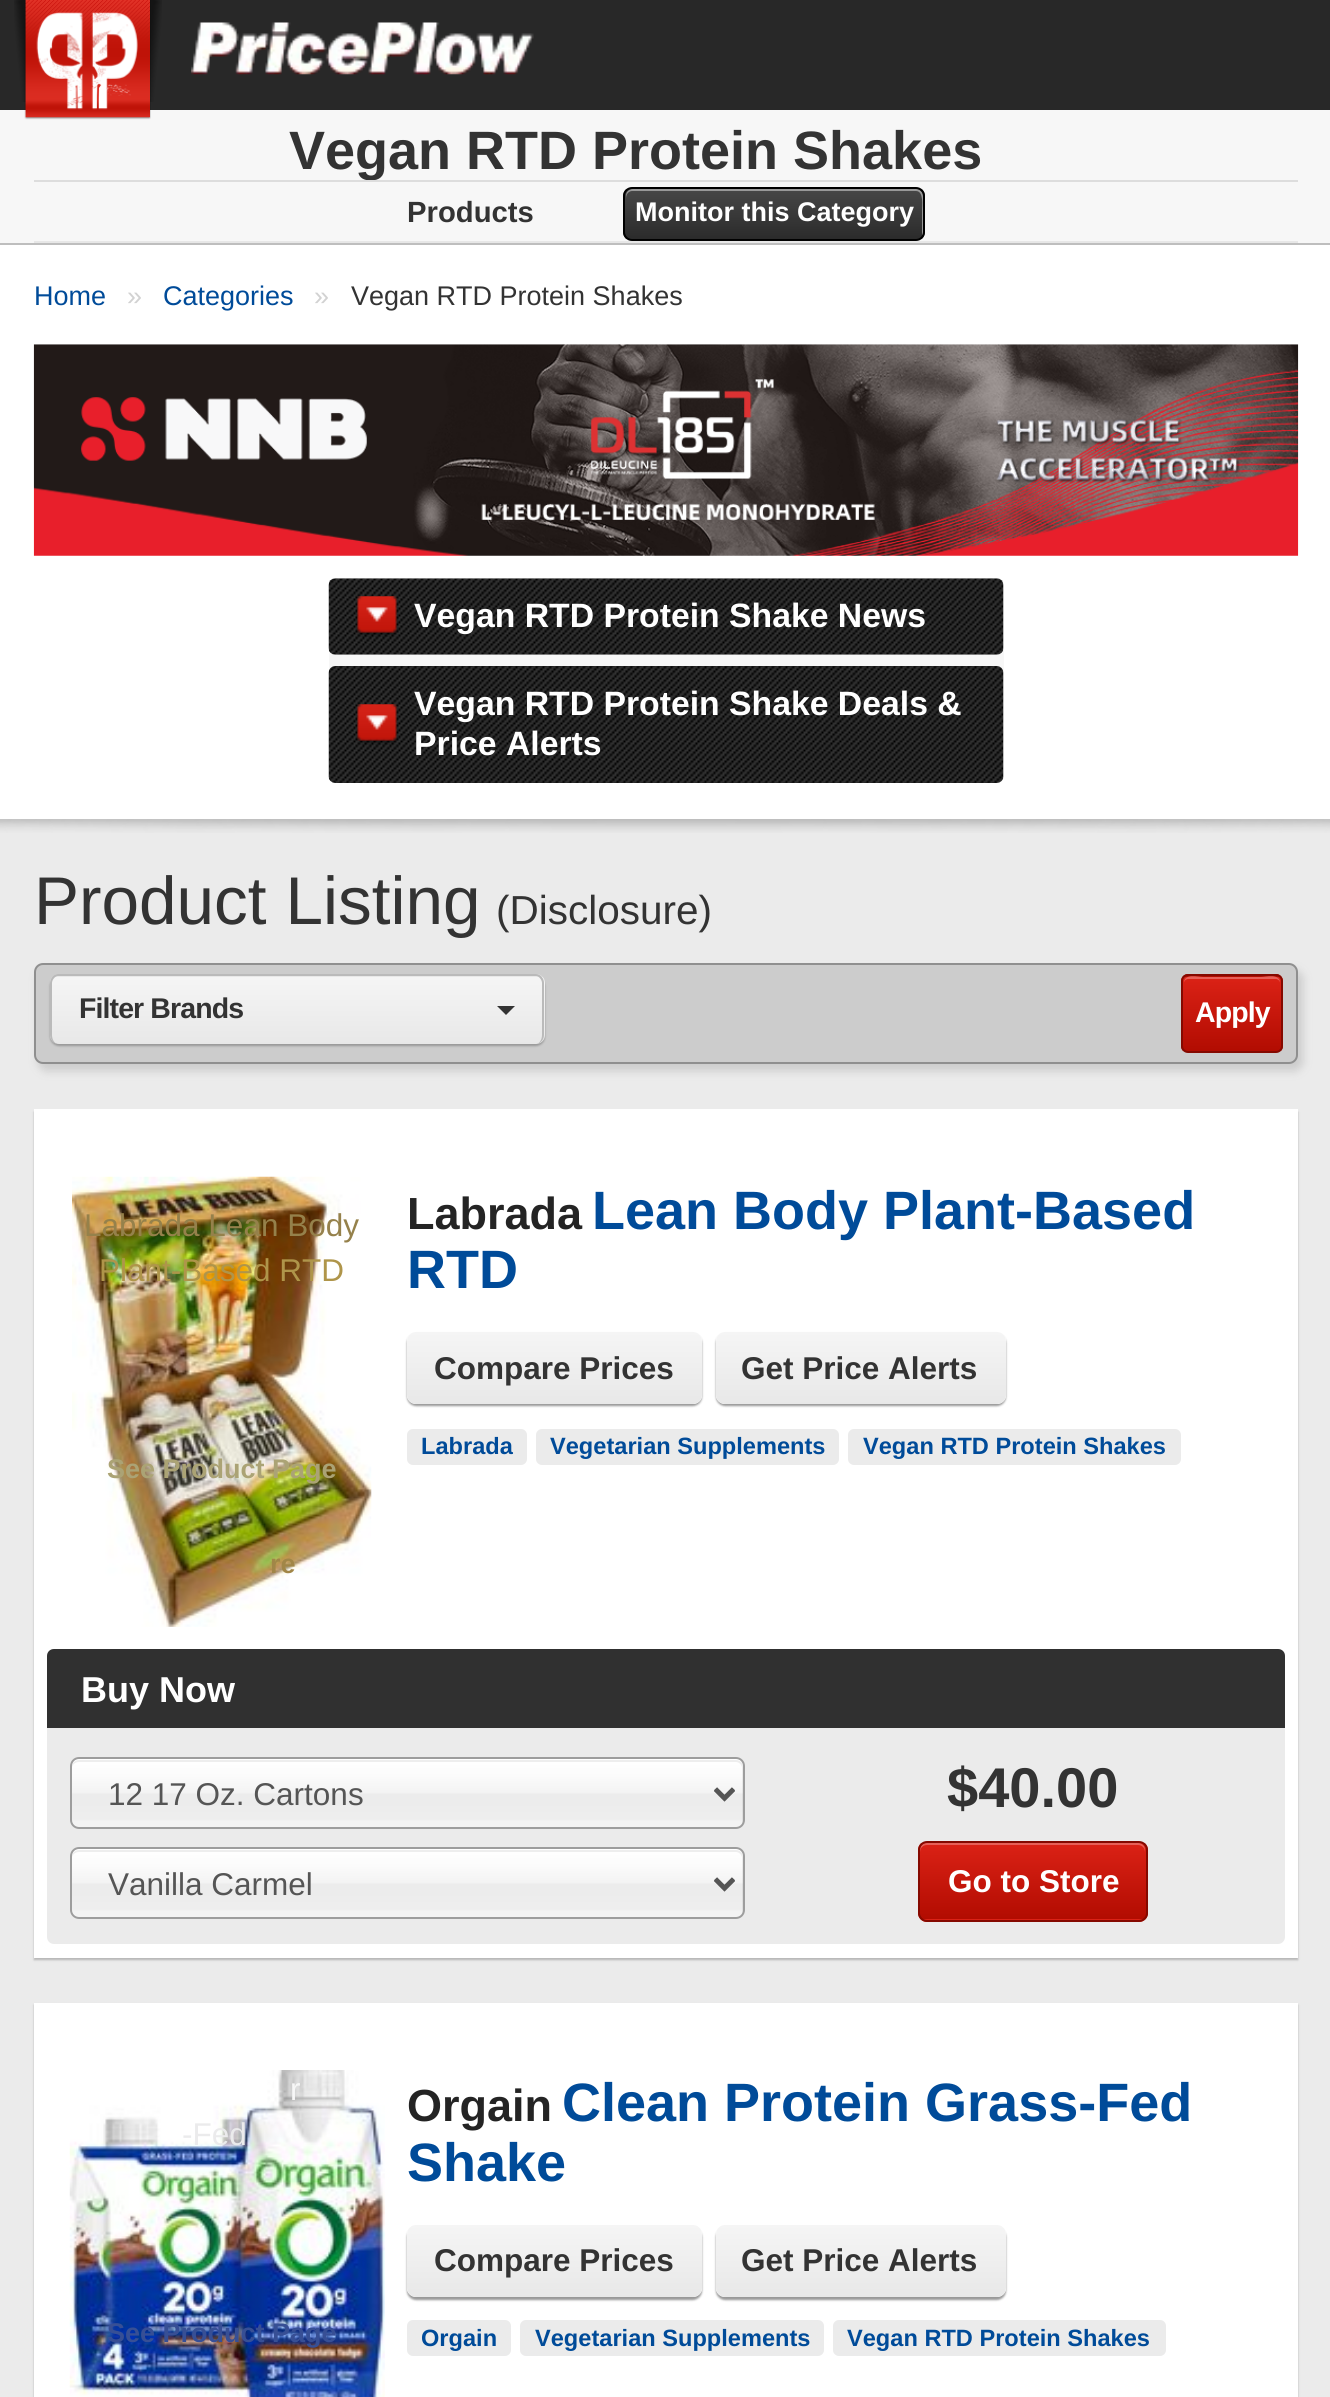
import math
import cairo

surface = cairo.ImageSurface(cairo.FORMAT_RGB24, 1330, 2397)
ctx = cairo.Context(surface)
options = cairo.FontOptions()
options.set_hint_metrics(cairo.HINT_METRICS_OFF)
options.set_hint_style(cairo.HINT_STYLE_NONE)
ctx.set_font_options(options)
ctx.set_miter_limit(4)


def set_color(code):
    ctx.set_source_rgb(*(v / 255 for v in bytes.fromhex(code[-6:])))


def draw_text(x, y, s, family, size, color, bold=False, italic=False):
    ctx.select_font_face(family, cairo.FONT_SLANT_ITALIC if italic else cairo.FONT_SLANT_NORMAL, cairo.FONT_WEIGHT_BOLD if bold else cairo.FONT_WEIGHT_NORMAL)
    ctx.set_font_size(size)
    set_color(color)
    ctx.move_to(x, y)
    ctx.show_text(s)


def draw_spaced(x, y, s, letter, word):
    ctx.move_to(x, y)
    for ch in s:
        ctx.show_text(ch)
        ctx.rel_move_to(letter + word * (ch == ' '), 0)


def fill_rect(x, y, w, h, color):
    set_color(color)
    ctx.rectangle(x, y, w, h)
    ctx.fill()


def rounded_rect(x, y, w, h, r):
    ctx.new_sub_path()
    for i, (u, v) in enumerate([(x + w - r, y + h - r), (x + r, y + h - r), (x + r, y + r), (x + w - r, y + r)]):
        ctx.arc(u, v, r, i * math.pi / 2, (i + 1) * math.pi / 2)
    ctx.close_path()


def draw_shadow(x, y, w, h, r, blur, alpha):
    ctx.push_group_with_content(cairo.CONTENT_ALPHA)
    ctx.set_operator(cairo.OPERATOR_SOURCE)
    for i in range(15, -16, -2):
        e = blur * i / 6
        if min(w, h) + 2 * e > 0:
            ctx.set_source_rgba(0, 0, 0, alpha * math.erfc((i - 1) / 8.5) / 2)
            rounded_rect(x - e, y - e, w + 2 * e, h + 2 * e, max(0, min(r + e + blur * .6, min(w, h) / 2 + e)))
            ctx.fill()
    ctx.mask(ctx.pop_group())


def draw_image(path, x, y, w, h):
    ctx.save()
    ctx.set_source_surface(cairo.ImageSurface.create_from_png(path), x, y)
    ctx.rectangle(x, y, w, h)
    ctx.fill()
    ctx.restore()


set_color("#282828")
ctx.paint()
fill_rect(0, 110, 1330, 133, "#f7f7f7")
draw_image("assets/img1.png", 14, 0, 148, 120)
draw_image("assets/img2.png", 191, 22, 343, 53)
fill_rect(0, 243, 1330, 2, "#bebebe")
fill_rect(34, 241, 1264, 2, "#e7e7e7")
draw_text(289, 169, "Vegan RTD Protein Shakes", "Liberation Sans", 54, "#333333", bold=True)
fill_rect(34, 180, 1264, 2, "#dddddd")
draw_text(407, 222, "Products", "Liberation Sans", 29.25, "#333333", bold=True)
ctx.save()
rounded_rect(623, 187, 302, 54, 9)
ctx.clip()
gradient = cairo.LinearGradient(774, 189, 774, 239)
gradient.add_color_stop_rgba(0, 0.278, 0.278, 0.278, 1)
gradient.add_color_stop_rgba(1, 0.169, 0.169, 0.169, 1)
ctx.set_source(gradient)
ctx.rectangle(623, 189, 302, 50)
ctx.fill()
ctx.restore()
set_color("#999999")
ctx.new_path()
ctx.move_to(632, 191)
ctx.line_to(916, 191)
ctx.curve_to(924, 191, 922, 206, 922, 210)
ctx.line_to(922, 236)
ctx.curve_to(923, 235, 923, 233, 923, 232)
ctx.line_to(923, 196)
ctx.curve_to(923, 192, 920, 189, 916, 189)
ctx.line_to(633, 189)
ctx.curve_to(629, 189, 626, 192, 626, 196)
ctx.line_to(626, 198)
ctx.curve_to(626, 194, 629, 191, 632, 191)
ctx.close_path()
ctx.fill()
rounded_rect(624, 188, 300, 52, 8)
set_color("#000000")
ctx.stroke()
draw_text(635, 221, "Monitor this Category", "Liberation Sans", 27, "#ffffff", bold=True)
fill_rect(0, 245, 1330, 574, "#ffffff")
draw_text(34, 305, "Home", "Liberation Sans", 27, "#004b99")
draw_text(127, 305, "»", "Liberation Sans", 27, "#d2d2d2")
draw_text(163, 305, "Categories", "Liberation Sans", 27, "#004b99")
draw_text(314, 305, "»", "Liberation Sans", 27, "#d2d2d2")
draw_text(351, 305, "Vegan RTD Protein Shakes", "Liberation Sans", 27, "#333333")
draw_image("assets/img3.png", 33, 344, 1266, 212)
set_color("#f7f7f7")
rounded_rect(329, 578, 675, 205, 7)
ctx.fill()
draw_image("assets/img4.png", 328, 578, 676, 77)
draw_image("assets/img5.png", 356, 596, 42, 41)
draw_text(414, 627, "Vegan RTD Protein Shake News", "Liberation Sans", 33.75, "#ffffff", bold=True)
draw_image("assets/img6.png", 328, 666, 676, 117)
draw_image("assets/img7.png", 356, 704, 42, 41)
draw_text(414, 715, "Vegan RTD Protein Shake Deals &", "Liberation Sans", 33.75, "#ffffff", bold=True)
draw_text(414, 755, "Price Alerts", "Liberation Sans", 33.75, "#ffffff", bold=True)
fill_rect(0, 819, 1330, 1578, "#ebebeb")
draw_image("assets/img8.png", 0, 819, 1330, 14)
draw_text(34, 924, "Product Listing", "Liberation Sans", 67.5, "#333333")
draw_text(496, 924, "(Disclosure)", "Liberation Sans", 40.5, "#333333")
set_color("#cccccc")
draw_shadow(38, 970, 1265, 101, 9, 4.5, 1)
set_color("#cccccc")
rounded_rect(35, 964, 1262, 99, 8)
ctx.fill_preserve()
set_color("#8f8f8f")
ctx.stroke()
set_color("#999999")
draw_shadow(50, 977, 495, 69, 9, 1, 1)
ctx.save()
rounded_rect(50, 974, 495, 70, 9)
ctx.clip()
gradient = cairo.LinearGradient(297, 909, 297, 977)
gradient.add_color_stop_rgba(0, 0.961, 0.961, 0.961, 1)
gradient.add_color_stop_rgba(1, 0.91, 0.91, 0.91, 1)
ctx.set_source(gradient)
ctx.rectangle(50, 974, 495, 3)
ctx.fill()
gradient = cairo.LinearGradient(297, 977, 297, 1044)
gradient.add_color_stop_rgba(0, 0.961, 0.961, 0.961, 1)
gradient.add_color_stop_rgba(1, 0.91, 0.91, 0.91, 1)
ctx.set_source(gradient)
ctx.new_path()
ctx.move_to(50, 977)
ctx.line_to(545, 977)
ctx.line_to(545, 1035)
ctx.curve_to(545, 1040, 541, 1044, 536, 1044)
ctx.line_to(59, 1044)
ctx.curve_to(54, 1044, 50, 1040, 50, 1035)
ctx.close_path()
ctx.fill()
ctx.restore()
set_color("#bababa")
ctx.set_fill_rule(cairo.FILL_RULE_EVEN_ODD)
ctx.new_path()
ctx.move_to(58, 974)
ctx.line_to(536, 974)
ctx.curve_to(540, 974, 544, 978, 544, 983)
ctx.line_to(544, 1035)
ctx.curve_to(544, 1040, 540, 1044, 536, 1044)
ctx.line_to(58, 1044)
ctx.curve_to(54, 1044, 50, 1040, 50, 1035)
ctx.line_to(50, 983)
ctx.curve_to(50, 978, 54, 974, 58, 974)
ctx.close_path()
ctx.move_to(58, 976)
ctx.line_to(536, 976)
ctx.curve_to(539, 976, 542, 980, 542, 983)
ctx.line_to(542, 1035)
ctx.curve_to(542, 1040, 539, 1044, 536, 1044)
ctx.line_to(58, 1044)
ctx.curve_to(55, 1044, 52, 1040, 52, 1035)
ctx.line_to(52, 983)
ctx.curve_to(52, 980, 55, 976, 58, 976)
ctx.close_path()
ctx.fill()
ctx.select_font_face("Liberation Sans", cairo.FONT_SLANT_NORMAL, cairo.FONT_WEIGHT_BOLD)
ctx.set_font_size(28.5)
set_color("#333333")
draw_spaced(79, 1018, "Filter Brands", -0.9, 0)
ctx.set_fill_rule(cairo.FILL_RULE_WINDING)
ctx.new_path()
ctx.move_to(497, 1006)
ctx.line_to(515, 1006)
ctx.line_to(506, 1015)
ctx.close_path()
ctx.fill()
ctx.save()
rounded_rect(1181, 974, 102, 79, 7)
ctx.clip()
gradient = cairo.LinearGradient(1232, 902, 1232, 977)
gradient.add_color_stop_rgba(0, 0.859, 0.133, 0.086, 1)
gradient.add_color_stop_rgba(1, 0.698, 0.047, 0.004, 1)
ctx.set_source(gradient)
ctx.rectangle(1181, 974, 102, 3)
ctx.fill()
gradient = cairo.LinearGradient(1232, 977, 1232, 1051)
gradient.add_color_stop_rgba(0, 0.859, 0.133, 0.086, 1)
gradient.add_color_stop_rgba(1, 0.698, 0.047, 0.004, 1)
ctx.set_source(gradient)
ctx.rectangle(1181, 977, 102, 74)
ctx.fill()
ctx.restore()
set_color("#e66058")
ctx.new_path()
ctx.move_to(1188, 979)
ctx.line_to(1276, 979)
ctx.curve_to(1278, 979, 1280, 981, 1280, 983)
ctx.curve_to(1280, 973, 1266, 977, 1261, 977)
ctx.line_to(1203, 977)
ctx.curve_to(1198, 977, 1184, 973, 1184, 983)
ctx.curve_to(1184, 981, 1186, 979, 1188, 979)
ctx.close_path()
ctx.fill()
rounded_rect(1182, 975, 100, 77, 6)
set_color("#850900")
ctx.stroke()
set_color("#ffffff")
draw_spaced(1195, 1022, "Apply", -0.9, 0)
set_color("#b6b6b6")
draw_shadow(34, 1112, 1264, 848, 0, 1, 1)
fill_rect(34, 1109, 1264, 849, "#ffffff")
draw_image("assets/img9.png", 72, 1176, 300, 451)
draw_text(84, 1236, "Labrada Lean Body", "Liberation Sans", 31.5, "#95814b")
draw_text(99, 1281, "Plant-Based RTD", "Liberation Sans", 31.5, "#af954a")
draw_text(107, 1478, "See Product Page", "Liberation Sans", 27, "#aba375", bold=True)
draw_text(270, 1573, "re", "Liberation Sans", 27, "#a18647", bold=True)
draw_text(407, 1229, "Labrada", "Liberation Sans", 45, "#242424", bold=True)
draw_text(592, 1229, "Lean Body Plant-Based", "Liberation Sans", 54, "#004b99", bold=True)
draw_text(407, 1288, "RTD", "Liberation Sans", 54, "#004b99", bold=True)
ctx.save()
ctx.set_fill_rule(cairo.FILL_RULE_EVEN_ODD)
ctx.new_path()
ctx.move_to(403, 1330)
ctx.line_to(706, 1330)
ctx.line_to(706, 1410)
ctx.line_to(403, 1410)
ctx.close_path()
ctx.move_to(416, 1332)
ctx.line_to(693, 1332)
ctx.curve_to(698, 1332, 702, 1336, 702, 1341)
ctx.line_to(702, 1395)
ctx.curve_to(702, 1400, 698, 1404, 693, 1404)
ctx.line_to(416, 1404)
ctx.curve_to(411, 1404, 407, 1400, 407, 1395)
ctx.line_to(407, 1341)
ctx.curve_to(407, 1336, 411, 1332, 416, 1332)
ctx.close_path()
ctx.clip()
set_color("#999999")
draw_shadow(407, 1334, 295, 72, 9, 1, 1)
ctx.restore()
gradient = cairo.LinearGradient(555, 1332, 555, 1404)
gradient.add_color_stop_rgba(0, 0.961, 0.961, 0.961, 1)
gradient.add_color_stop_rgba(1, 0.91, 0.91, 0.91, 1)
ctx.set_source(gradient)
rounded_rect(407, 1332, 295, 72, 9)
ctx.fill()
draw_text(434, 1379, "Compare Prices", "Liberation Sans", 31.5, "#333333", bold=True)
ctx.save()
ctx.set_fill_rule(cairo.FILL_RULE_EVEN_ODD)
ctx.new_path()
ctx.move_to(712, 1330)
ctx.line_to(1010, 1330)
ctx.line_to(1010, 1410)
ctx.line_to(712, 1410)
ctx.close_path()
ctx.move_to(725, 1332)
ctx.line_to(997, 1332)
ctx.curve_to(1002, 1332, 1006, 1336, 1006, 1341)
ctx.line_to(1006, 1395)
ctx.curve_to(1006, 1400, 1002, 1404, 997, 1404)
ctx.line_to(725, 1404)
ctx.curve_to(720, 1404, 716, 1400, 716, 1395)
ctx.line_to(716, 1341)
ctx.curve_to(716, 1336, 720, 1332, 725, 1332)
ctx.close_path()
ctx.clip()
set_color("#999999")
draw_shadow(716, 1334, 290, 72, 9, 1, 1)
ctx.restore()
gradient = cairo.LinearGradient(861, 1332, 861, 1404)
gradient.add_color_stop_rgba(0, 0.961, 0.961, 0.961, 1)
gradient.add_color_stop_rgba(1, 0.91, 0.91, 0.91, 1)
ctx.set_source(gradient)
rounded_rect(716, 1332, 290, 72, 9)
ctx.fill()
draw_text(741, 1379, "Get Price Alerts", "Liberation Sans", 31.5, "#333333", bold=True)
set_color("#ebebeb")
rounded_rect(407, 1429, 120, 36, 6)
ctx.fill()
draw_text(421, 1454, "Labrada", "Liberation Sans", 23.6, "#004b99", bold=True)
set_color("#ebebeb")
rounded_rect(536, 1429, 303, 36, 6)
ctx.fill()
draw_text(550, 1454, "Vegetarian Supplements", "Liberation Sans", 23.6, "#004b99", bold=True)
set_color("#ebebeb")
rounded_rect(848, 1429, 333, 36, 6)
ctx.fill()
draw_text(863, 1454, "Vegan RTD Protein Shakes", "Liberation Sans", 23.6, "#004b99", bold=True)
set_color("#ebebeb")
rounded_rect(47, 1649, 1238, 295, 7)
ctx.fill()
set_color("#303030")
ctx.new_path()
ctx.move_to(54, 1649)
ctx.line_to(1278, 1649)
ctx.curve_to(1282, 1649, 1285, 1652, 1285, 1656)
ctx.line_to(1285, 1728)
ctx.line_to(47, 1728)
ctx.line_to(47, 1656)
ctx.curve_to(47, 1652, 50, 1649, 54, 1649)
ctx.close_path()
ctx.fill()
draw_text(81, 1702, "Buy Now", "Liberation Sans", 36, "#ffffff", bold=True)
draw_image("assets/img10.png", 70, 1757, 675, 72)
ctx.set_source_rgba(0, 0, 0, 0.07)
ctx.new_path()
ctx.move_to(79, 1762)
ctx.line_to(736, 1762)
ctx.curve_to(739, 1762, 742, 1765, 742, 1768)
ctx.line_to(742, 1824)
ctx.curve_to(743, 1823, 743, 1821, 743, 1820)
ctx.line_to(743, 1767)
ctx.curve_to(743, 1763, 740, 1760, 736, 1760)
ctx.line_to(79, 1760)
ctx.curve_to(75, 1760, 72, 1763, 72, 1767)
ctx.line_to(72, 1768)
ctx.curve_to(72, 1765, 75, 1762, 79, 1762)
ctx.close_path()
ctx.fill()
rounded_rect(71, 1758, 673, 70, 8)
set_color("#9d9d9d")
ctx.stroke()
ctx.new_path()
ctx.move_to(715.5, 1789.5)
ctx.line_to(724.5, 1798.5)
ctx.line_to(733.5, 1789.5)
set_color("#555555")
ctx.set_line_width(4.5)
ctx.stroke()
draw_text(108, 1805, "12 17 Oz. Cartons", "Liberation Sans", 31.5, "#555555")
draw_image("assets/img10.png", 70, 1847, 675, 72)
ctx.set_source_rgba(0, 0, 0, 0.07)
ctx.new_path()
ctx.move_to(79, 1852)
ctx.line_to(736, 1852)
ctx.curve_to(739, 1852, 742, 1855, 742, 1858)
ctx.line_to(742, 1914)
ctx.curve_to(743, 1913, 743, 1911, 743, 1910)
ctx.line_to(743, 1857)
ctx.curve_to(743, 1853, 740, 1850, 736, 1850)
ctx.line_to(79, 1850)
ctx.curve_to(75, 1850, 72, 1853, 72, 1857)
ctx.line_to(72, 1858)
ctx.curve_to(72, 1855, 75, 1852, 79, 1852)
ctx.close_path()
ctx.fill()
rounded_rect(71, 1848, 673, 70, 8)
set_color("#9d9d9d")
ctx.set_line_width(2)
ctx.stroke()
ctx.new_path()
ctx.move_to(715.5, 1879.5)
ctx.line_to(724.5, 1888.5)
ctx.line_to(733.5, 1879.5)
set_color("#555555")
ctx.set_line_width(4.5)
ctx.stroke()
draw_text(108, 1895, "Vanilla Carmel", "Liberation Sans", 31.5, "#555555")
draw_text(947, 1807, "$40.00", "Liberation Sans", 56, "#333333", bold=True)
ctx.save()
rounded_rect(918, 1841, 230, 81, 9)
ctx.clip()
gradient = cairo.LinearGradient(1033, 1843, 1033, 1919)
gradient.add_color_stop_rgba(0, 0.859, 0.133, 0.086, 1)
gradient.add_color_stop_rgba(1, 0.698, 0.047, 0.004, 1)
ctx.set_source(gradient)
ctx.rectangle(918, 1843, 230, 76)
ctx.fill()
gradient = cairo.LinearGradient(1033, 1919, 1033, 1996)
gradient.add_color_stop_rgba(0, 0.859, 0.133, 0.086, 1)
gradient.add_color_stop_rgba(1, 0.698, 0.047, 0.004, 1)
ctx.set_source(gradient)
ctx.rectangle(918, 1919, 230, 3)
ctx.fill()
ctx.restore()
set_color("#e66058")
ctx.new_path()
ctx.move_to(927, 1845)
ctx.line_to(1138, 1845)
ctx.curve_to(1142, 1845, 1145, 1848, 1145, 1852)
ctx.line_to(1145, 1850)
ctx.curve_to(1145, 1846, 1142, 1843, 1138, 1843)
ctx.line_to(927, 1843)
ctx.curve_to(923, 1843, 920, 1846, 920, 1850)
ctx.line_to(920, 1852)
ctx.curve_to(920, 1848, 923, 1845, 927, 1845)
ctx.close_path()
ctx.fill()
rounded_rect(919, 1842, 228, 79, 8)
set_color("#850900")
ctx.set_line_width(2)
ctx.stroke()
draw_text(948, 1892, "Go to Store", "Liberation Sans", 31.5, "#ffffff", bold=True)
set_color("#b6b6b6")
draw_shadow(34, 2005, 1264, 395, 0, 1, 1)
fill_rect(34, 2003, 1264, 394, "#ffffff")
draw_image("assets/img11.png", 69, 2070, 316, 327)
draw_text(290, 2100, "r", "Liberation Sans", 31.5, "#f7f7f7")
draw_text(182, 2145, "-Fed", "Liberation Sans", 31.5, "#ebebec")
draw_text(107, 2342, "See Product Page", "Liberation Sans", 27, "#374f95", bold=True)
draw_text(407, 2121, "Orgain", "Liberation Sans", 45, "#242424", bold=True)
draw_text(562, 2121, "Clean Protein Grass-Fed", "Liberation Sans", 54, "#004b99", bold=True)
draw_text(407, 2181, "Shake", "Liberation Sans", 54, "#004b99", bold=True)
ctx.save()
ctx.set_fill_rule(cairo.FILL_RULE_EVEN_ODD)
ctx.new_path()
ctx.move_to(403, 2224)
ctx.line_to(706, 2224)
ctx.line_to(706, 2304)
ctx.line_to(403, 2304)
ctx.close_path()
ctx.move_to(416, 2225)
ctx.line_to(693, 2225)
ctx.curve_to(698, 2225, 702, 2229, 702, 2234)
ctx.line_to(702, 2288)
ctx.curve_to(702, 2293, 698, 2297, 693, 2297)
ctx.line_to(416, 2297)
ctx.curve_to(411, 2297, 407, 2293, 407, 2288)
ctx.line_to(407, 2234)
ctx.curve_to(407, 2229, 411, 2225, 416, 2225)
ctx.close_path()
ctx.clip()
set_color("#999999")
draw_shadow(407, 2228, 295, 72, 9, 1, 1)
ctx.restore()
gradient = cairo.LinearGradient(555, 2225, 555, 2297)
gradient.add_color_stop_rgba(0, 0.961, 0.961, 0.961, 1)
gradient.add_color_stop_rgba(1, 0.91, 0.91, 0.91, 1)
ctx.set_source(gradient)
rounded_rect(407, 2225, 295, 72, 9)
ctx.fill()
draw_text(434, 2271, "Compare Prices", "Liberation Sans", 31.5, "#333333", bold=True)
ctx.save()
ctx.set_fill_rule(cairo.FILL_RULE_EVEN_ODD)
ctx.new_path()
ctx.move_to(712, 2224)
ctx.line_to(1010, 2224)
ctx.line_to(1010, 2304)
ctx.line_to(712, 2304)
ctx.close_path()
ctx.move_to(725, 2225)
ctx.line_to(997, 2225)
ctx.curve_to(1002, 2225, 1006, 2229, 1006, 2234)
ctx.line_to(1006, 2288)
ctx.curve_to(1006, 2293, 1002, 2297, 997, 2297)
ctx.line_to(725, 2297)
ctx.curve_to(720, 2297, 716, 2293, 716, 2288)
ctx.line_to(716, 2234)
ctx.curve_to(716, 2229, 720, 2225, 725, 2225)
ctx.close_path()
ctx.clip()
set_color("#999999")
draw_shadow(716, 2228, 290, 72, 9, 1, 1)
ctx.restore()
gradient = cairo.LinearGradient(861, 2225, 861, 2297)
gradient.add_color_stop_rgba(0, 0.961, 0.961, 0.961, 1)
gradient.add_color_stop_rgba(1, 0.91, 0.91, 0.91, 1)
ctx.set_source(gradient)
rounded_rect(716, 2225, 290, 72, 9)
ctx.fill()
draw_text(741, 2271, "Get Price Alerts", "Liberation Sans", 31.5, "#333333", bold=True)
set_color("#ebebeb")
rounded_rect(407, 2320, 104, 36, 6)
ctx.fill()
draw_text(421, 2346, "Orgain", "Liberation Sans", 23.6, "#004b99", bold=True)
set_color("#ebebeb")
rounded_rect(520, 2320, 304, 36, 6)
ctx.fill()
draw_text(535, 2346, "Vegetarian Supplements", "Liberation Sans", 23.6, "#004b99", bold=True)
set_color("#ebebeb")
rounded_rect(833, 2320, 333, 36, 6)
ctx.fill()
draw_text(847, 2346, "Vegan RTD Protein Shakes", "Liberation Sans", 23.6, "#004b99", bold=True)
surface.write_to_png("output.png")
